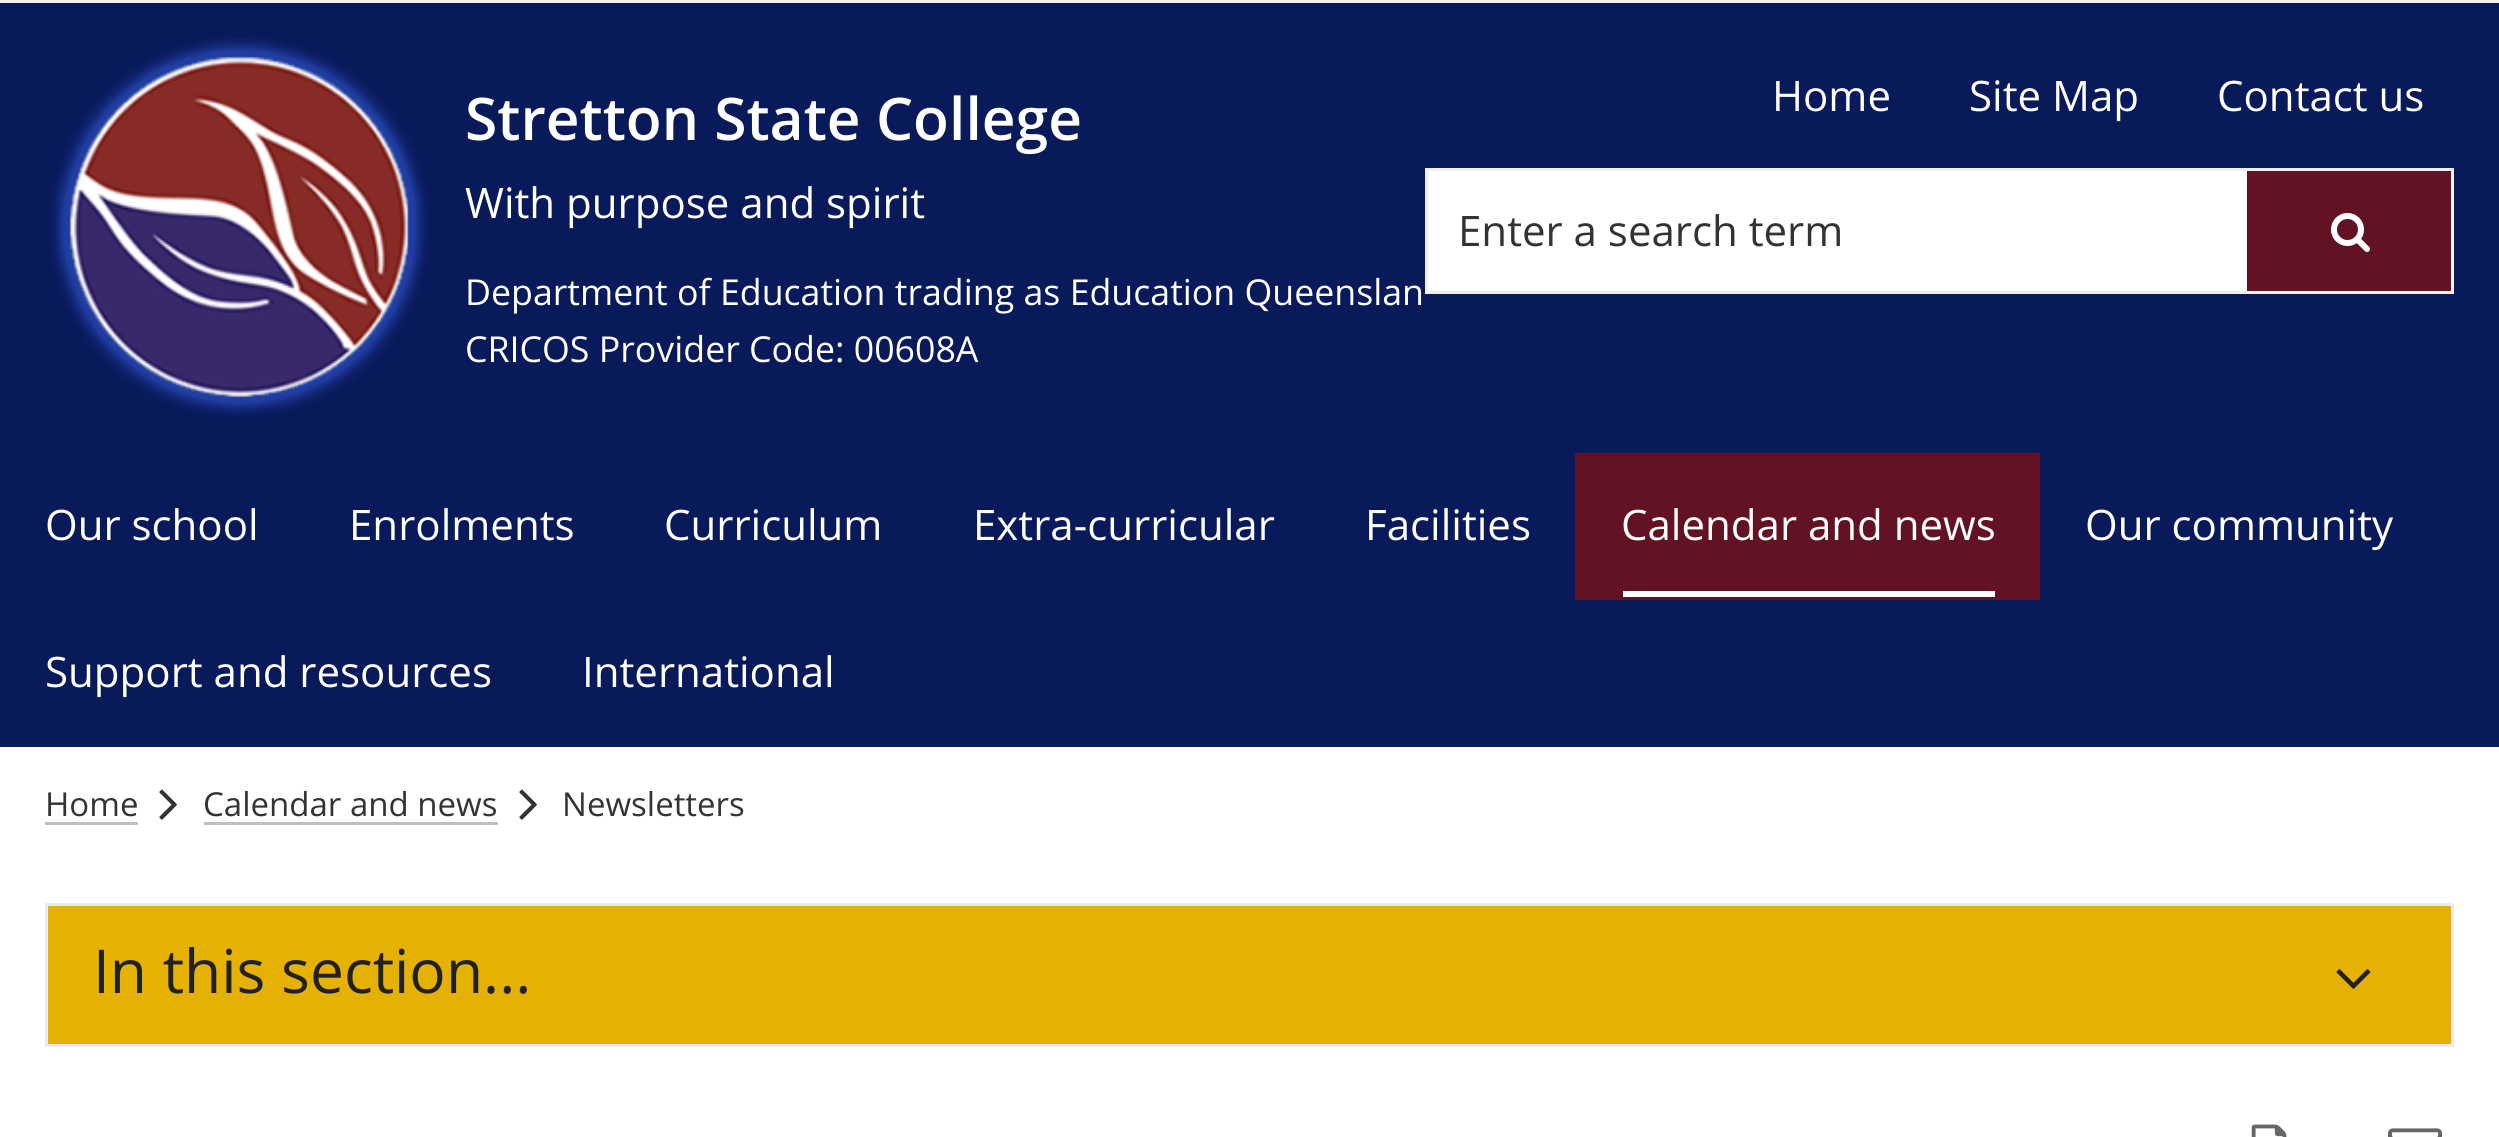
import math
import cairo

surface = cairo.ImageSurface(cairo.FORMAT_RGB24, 2499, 1137)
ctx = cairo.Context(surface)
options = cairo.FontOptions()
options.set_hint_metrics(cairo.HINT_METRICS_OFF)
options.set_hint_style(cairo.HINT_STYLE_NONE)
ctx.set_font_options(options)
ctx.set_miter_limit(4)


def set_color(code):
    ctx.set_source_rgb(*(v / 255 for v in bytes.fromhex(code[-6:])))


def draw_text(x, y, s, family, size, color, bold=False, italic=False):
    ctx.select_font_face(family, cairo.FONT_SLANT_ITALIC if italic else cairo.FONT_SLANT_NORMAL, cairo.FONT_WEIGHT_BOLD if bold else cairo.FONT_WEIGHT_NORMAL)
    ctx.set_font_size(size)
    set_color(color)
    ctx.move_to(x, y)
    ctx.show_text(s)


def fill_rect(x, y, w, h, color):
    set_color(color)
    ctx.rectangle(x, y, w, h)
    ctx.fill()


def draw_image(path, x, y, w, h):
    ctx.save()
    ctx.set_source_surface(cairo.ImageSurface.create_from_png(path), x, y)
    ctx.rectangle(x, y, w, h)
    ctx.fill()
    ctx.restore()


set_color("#ffffff")
ctx.paint()
fill_rect(0, 0, 2499, 3, "#f3f3f3")
fill_rect(0, 3, 2499, 744, "#091a5a")
draw_image("assets/img1.png", 50, 37, 379, 380)
draw_text(465, 140, "Stretton State College", "Open Sans SemiBold", 58.75, "#ffffff")
draw_text(465, 218, "With purpose and spirit", "Open Sans", 42, "#ffffff")
draw_text(465, 305, "Department of Education trading as Education Queenslan", "Open Sans", 35.7, "#ffffff")
draw_text(465, 362, "CRICOS Provider Code: 00608A", "Open Sans", 35.7, "#ffffff")
draw_text(1772, 111, "Home", "Open Sans", 42, "#ffffff")
draw_text(1969, 111, "Site Map", "Open Sans", 42, "#ffffff")
draw_text(2217, 111, "Contact us", "Open Sans", 42, "#ffffff")
ctx.rectangle(1426.5, 169.5, 1026, 123)
set_color("#efefef")
ctx.set_line_width(3)
ctx.stroke()
fill_rect(1428, 171, 819, 120, "#ffffff")
draw_text(1458, 246, "Enter a search term", "Open Sans", 42, "#333333")
fill_rect(2247, 171, 204, 120, "#621222")
draw_image("assets/img2.png", 2331, 213, 39, 39)
draw_text(45, 540, "Our school", "Open Sans", 42, "#ffffff")
draw_text(349, 540, "Enrolments", "Open Sans", 42, "#ffffff")
draw_text(664, 540, "Curriculum", "Open Sans", 42, "#ffffff")
draw_text(973, 540, "Extra-curricular", "Open Sans", 42, "#ffffff")
draw_text(1365, 540, "Facilities", "Open Sans", 42, "#ffffff")
fill_rect(1575, 453, 465, 147, "#621222")
draw_text(1621, 540, "Calendar and news", "Open Sans", 42, "#ffffff")
fill_rect(1623, 591, 372, 6, "#ffffff")
draw_text(2085, 540, "Our community", "Open Sans", 42, "#ffffff")
draw_text(45, 687, "Support and resources", "Open Sans", 42, "#ffffff")
draw_text(582, 687, "International", "Open Sans", 42, "#ffffff")
draw_text(45, 816, "Home", "Open Sans", 33, "#333333")
fill_rect(45, 822, 93, 3, "#bfbfbf")
draw_image("assets/img3.png", 159, 789, 18, 31)
draw_text(203, 816, "Calendar and news", "Open Sans", 33, "#333333")
fill_rect(204, 822, 294, 3, "#bfbfbf")
draw_image("assets/img3.png", 519, 789, 18, 31)
draw_text(562, 816, "Newsletters", "Open Sans", 33, "#333333")
set_color("#e5b105")
ctx.rectangle(46.5, 904.5, 2406, 141)
ctx.fill_preserve()
set_color("#ececec")
ctx.stroke()
draw_text(93, 993, "In this section...", "Open Sans", 60.5, "#212121")
draw_image("assets/img4.png", 2336, 969, 35, 20)
draw_image("assets/img5.png", 2251, 1124, 36, 13)
draw_image("assets/img6.png", 2388, 1128, 54, 9)
surface.write_to_png("output.png")
